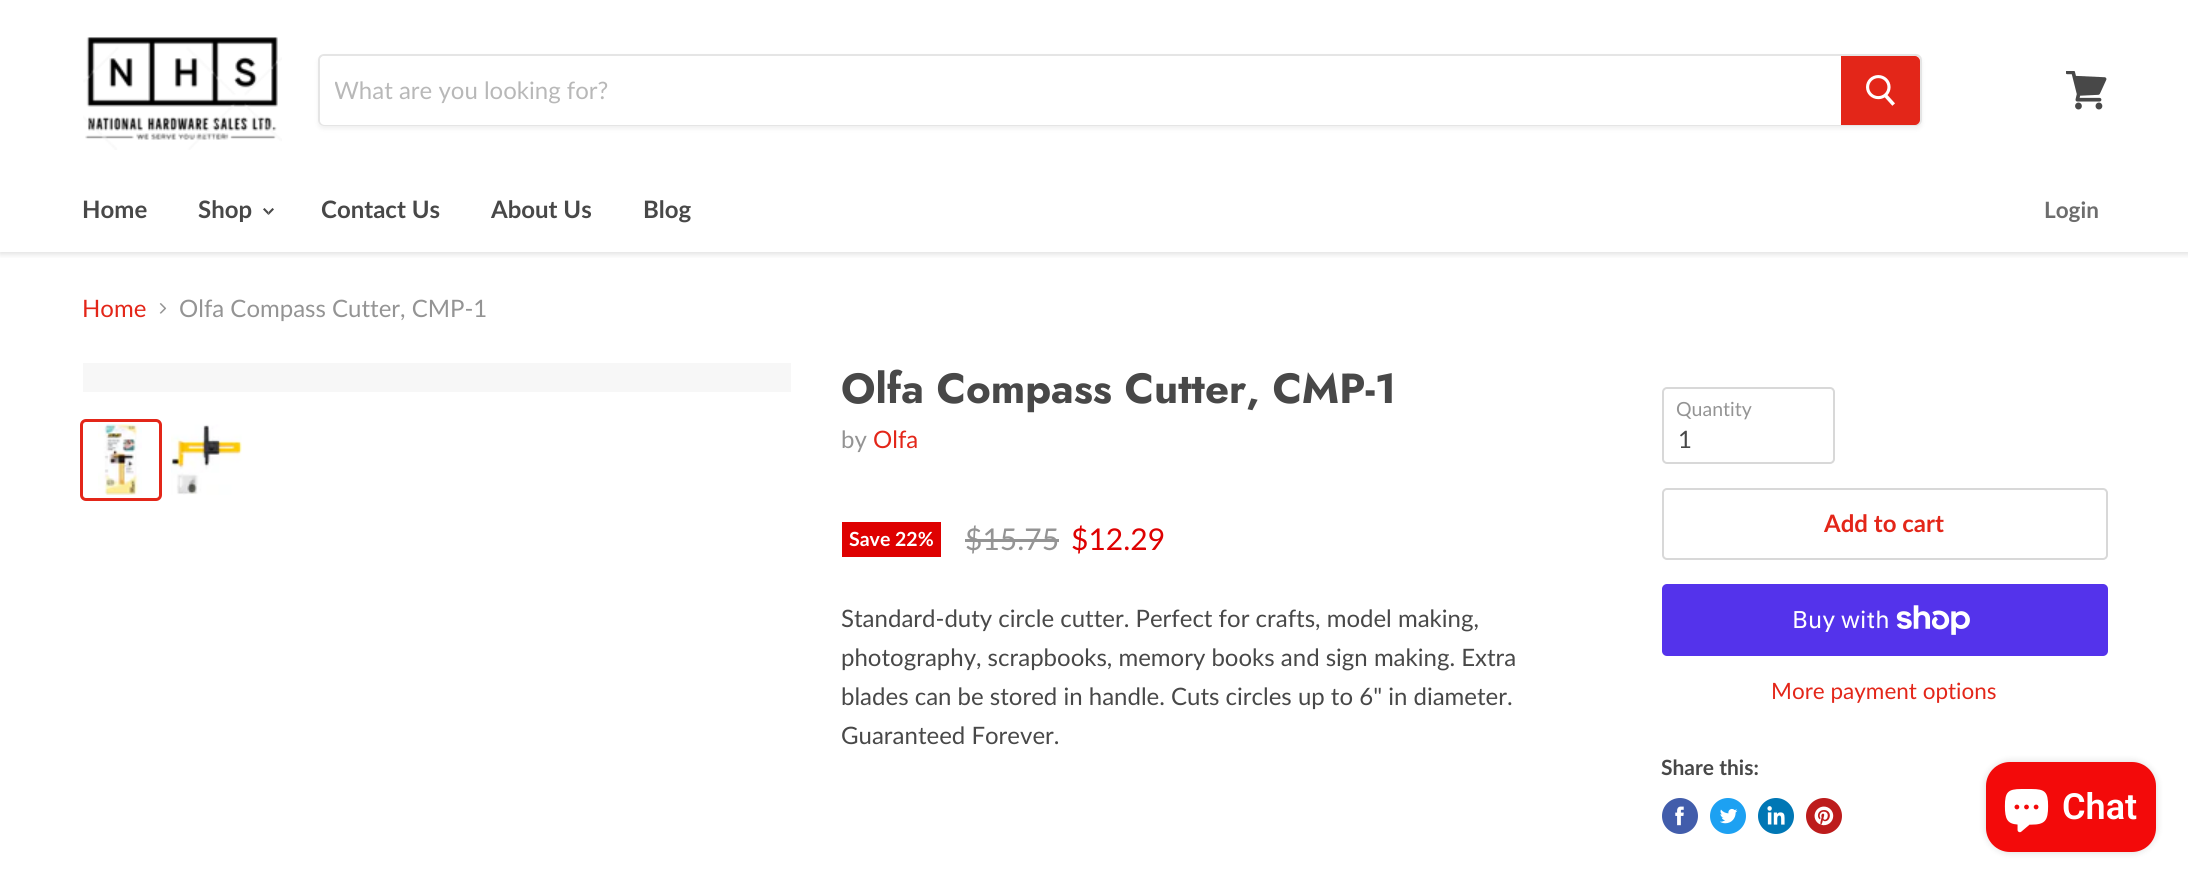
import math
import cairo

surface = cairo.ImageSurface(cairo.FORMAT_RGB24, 2188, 883)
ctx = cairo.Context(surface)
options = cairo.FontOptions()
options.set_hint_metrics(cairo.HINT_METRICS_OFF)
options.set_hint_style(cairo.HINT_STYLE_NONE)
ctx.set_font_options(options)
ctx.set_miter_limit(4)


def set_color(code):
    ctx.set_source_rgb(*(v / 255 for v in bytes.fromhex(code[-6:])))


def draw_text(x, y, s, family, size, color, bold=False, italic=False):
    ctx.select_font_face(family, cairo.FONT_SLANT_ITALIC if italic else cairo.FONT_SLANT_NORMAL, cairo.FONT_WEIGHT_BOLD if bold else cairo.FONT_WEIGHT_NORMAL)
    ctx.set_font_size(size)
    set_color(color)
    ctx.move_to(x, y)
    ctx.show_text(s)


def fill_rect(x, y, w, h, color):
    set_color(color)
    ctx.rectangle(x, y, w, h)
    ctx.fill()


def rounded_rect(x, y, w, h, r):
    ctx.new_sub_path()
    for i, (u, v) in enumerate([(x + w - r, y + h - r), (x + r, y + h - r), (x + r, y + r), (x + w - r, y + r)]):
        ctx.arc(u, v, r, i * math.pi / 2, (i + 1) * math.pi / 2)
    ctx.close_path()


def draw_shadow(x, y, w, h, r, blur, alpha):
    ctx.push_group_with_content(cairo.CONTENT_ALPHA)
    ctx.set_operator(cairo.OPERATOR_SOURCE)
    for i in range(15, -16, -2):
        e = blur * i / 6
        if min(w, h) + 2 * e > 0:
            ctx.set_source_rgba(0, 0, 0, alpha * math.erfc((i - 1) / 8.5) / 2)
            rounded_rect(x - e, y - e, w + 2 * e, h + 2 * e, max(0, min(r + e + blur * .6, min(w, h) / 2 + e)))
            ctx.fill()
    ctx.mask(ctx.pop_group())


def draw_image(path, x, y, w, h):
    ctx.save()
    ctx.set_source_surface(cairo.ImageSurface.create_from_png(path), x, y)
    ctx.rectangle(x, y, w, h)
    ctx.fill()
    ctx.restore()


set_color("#ffffff")
ctx.paint()
ctx.save()
ctx.rectangle(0, 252, 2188, 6)
ctx.clip()
set_color("#7f7f7f")
draw_shadow(0, 2, 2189, 252, 0, 3, 0.25)
ctx.restore()
draw_image("assets/img1.png", 83, 37, 199, 113)
ctx.save()
ctx.set_fill_rule(cairo.FILL_RULE_EVEN_ODD)
ctx.new_path()
ctx.move_to(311, 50)
ctx.line_to(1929, 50)
ctx.line_to(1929, 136)
ctx.line_to(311, 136)
ctx.close_path()
ctx.move_to(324, 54)
ctx.line_to(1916, 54)
ctx.curve_to(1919.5, 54, 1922, 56.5, 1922, 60)
ctx.line_to(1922, 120)
ctx.curve_to(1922, 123.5, 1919.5, 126, 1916, 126)
ctx.line_to(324, 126)
ctx.curve_to(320.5, 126, 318, 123.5, 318, 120)
ctx.line_to(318, 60)
ctx.curve_to(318, 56.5, 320.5, 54, 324, 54)
ctx.close_path()
ctx.clip()
set_color("#7f7f7f")
draw_shadow(318, 57, 1604, 72, 6, 2, 0.11)
ctx.restore()
rounded_rect(319, 55, 1602, 70, 5)
ctx.set_source_rgba(0.498, 0.498, 0.498, 0.2)
ctx.stroke()
set_color("#ffffff")
ctx.new_path()
ctx.move_to(325, 56)
ctx.line_to(1841, 56)
ctx.line_to(1841, 125)
ctx.line_to(325, 125)
ctx.curve_to(322, 125, 320, 123, 320, 120)
ctx.line_to(320, 61)
ctx.curve_to(320, 58, 322, 56, 325, 56)
ctx.close_path()
ctx.fill()
ctx.save()
ctx.rectangle(335, 75, 1491, 29)
ctx.clip()
draw_text(334, 99, "What are you looking for?", "Lato", 24, "#b8b8b8")
ctx.restore()
set_color("#e32619")
ctx.new_path()
ctx.move_to(1842, 57)
ctx.line_to(1915, 57)
ctx.curve_to(1917, 57, 1919, 59, 1919, 61)
ctx.line_to(1919, 120)
ctx.curve_to(1919, 122, 1917, 124, 1915, 124)
ctx.line_to(1842, 124)
ctx.close_path()
ctx.fill_preserve()
ctx.stroke()
draw_image("assets/img2.png", 1866, 75, 29, 31)
draw_image("assets/img3.png", 2066, 71, 41, 39)
draw_text(82, 218, "Home", "Lato", 24, "#484848", bold=True)
draw_text(198, 218, "Shop", "Lato", 24, "#484848", bold=True)
draw_image("assets/img4.png", 263, 208, 11, 7)
draw_text(321, 218, "Contact Us", "Lato", 24, "#484848", bold=True)
draw_text(491, 218, "About Us", "Lato", 24, "#484848", bold=True)
draw_text(643, 218, "Blog", "Lato", 24, "#484848", bold=True)
draw_text(2044, 218, "Login", "Lato", 22.5, "#6d6d6d", bold=True)
draw_text(82, 317, "Home", "Lato", 24, "#e32619")
draw_image("assets/img5.png", 159, 303, 8, 11)
draw_text(179, 317, "Olfa Compass Cutter, CMP-1", "Lato", 24, "#949494")
fill_rect(83, 363, 708, 29, "#f7f7f7")
rounded_rect(81.5, 420.5, 79, 79, 4.5)
set_color("#e32619")
ctx.set_line_width(3)
ctx.stroke()
draw_image("assets/img6.png", 98, 424, 44, 71)
draw_image("assets/img7.png", 171, 424, 71, 71)
draw_text(841, 403, "Olfa Compass Cutter, CMP-1", "Jost", 42, "#484848", bold=True)
draw_text(841, 448, "by", "Lato", 24, "#949494")
draw_text(873, 448, "Olfa", "Lato", 24, "#e32619")
fill_rect(842, 522, 99, 35, "#de0101")
draw_text(849, 546, "Save 22%", "Lato", 19.5, "#ffffff", bold=True)
draw_text(965, 550, "$15.75", "Lato", 30, "#949494")
fill_rect(965, 539, 94, 3, "#949494")
draw_text(1071, 550, "$12.29", "Lato", 30, "#de0101")
draw_text(841, 627, "Standard-duty circle cutter. Perfect for crafts, model making,", "Lato", 24, "#484848")
draw_text(841, 666, "photography, scrapbooks, memory books and sign making. Extra", "Lato", 24, "#484848")
draw_text(841, 705, "blades can be stored in handle. Cuts circles up to 6\" in diameter.", "Lato", 24, "#484848")
draw_text(841, 744, "Guaranteed Forever.", "Lato", 24, "#484848")
rounded_rect(1663, 388, 171, 75, 4)
set_color("#d8d8d8")
ctx.set_line_width(2)
ctx.stroke()
draw_text(1676, 416, "Quantity", "Lato", 19.5, "#949494")
draw_text(1678, 448, "1", "Lato", 24, "#484848")
rounded_rect(1663, 489, 444, 70, 4)
set_color("#d8d8d8")
ctx.stroke()
draw_text(1824, 532, "Add to cart", "Lato", 24, "#e32619", bold=True)
set_color("#5433eb")
rounded_rect(1662, 584, 446, 72, 5)
ctx.fill()
draw_text(1792, 628, "Buy with", "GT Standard", 24, "#ffffff")
draw_image("assets/img8.png", 1896, 605, 74, 30)
draw_text(1771, 699, "More payment options", "Lato", 22.5, "#e32619")
draw_text(1661, 775, "Share this:", "Lato", 21, "#484848", bold=True)
set_color("#425dab")
ctx.new_path()
ctx.arc(1680, 816, 18, 0, 2 * math.pi)
ctx.fill()
draw_image("assets/img9.png", 1675, 806, 9, 20)
set_color("#1da1f2")
ctx.arc(1728, 816, 18, 0, 2 * math.pi)
ctx.fill()
draw_image("assets/img10.png", 1720, 808, 18, 16)
set_color("#0077b5")
ctx.arc(1776, 816, 18, 0, 2 * math.pi)
ctx.fill()
draw_image("assets/img11.png", 1767, 806, 18, 19)
set_color("#bd1c1c")
ctx.arc(1824, 816, 18, 0, 2 * math.pi)
ctx.fill()
draw_image("assets/img12.png", 1814, 806, 20, 20)
set_color("#000000")
draw_shadow(1986, 762, 170, 90, 24, 4, 0.15)
set_color("#f30a0a")
rounded_rect(1986, 762, 170, 90, 24)
ctx.fill()
draw_image("assets/img13.png", 2004, 789, 45, 44)
draw_text(2062, 819, "Chat", "Roboto SemiBold", 36, "#ffffff")
surface.write_to_png("output.png")
